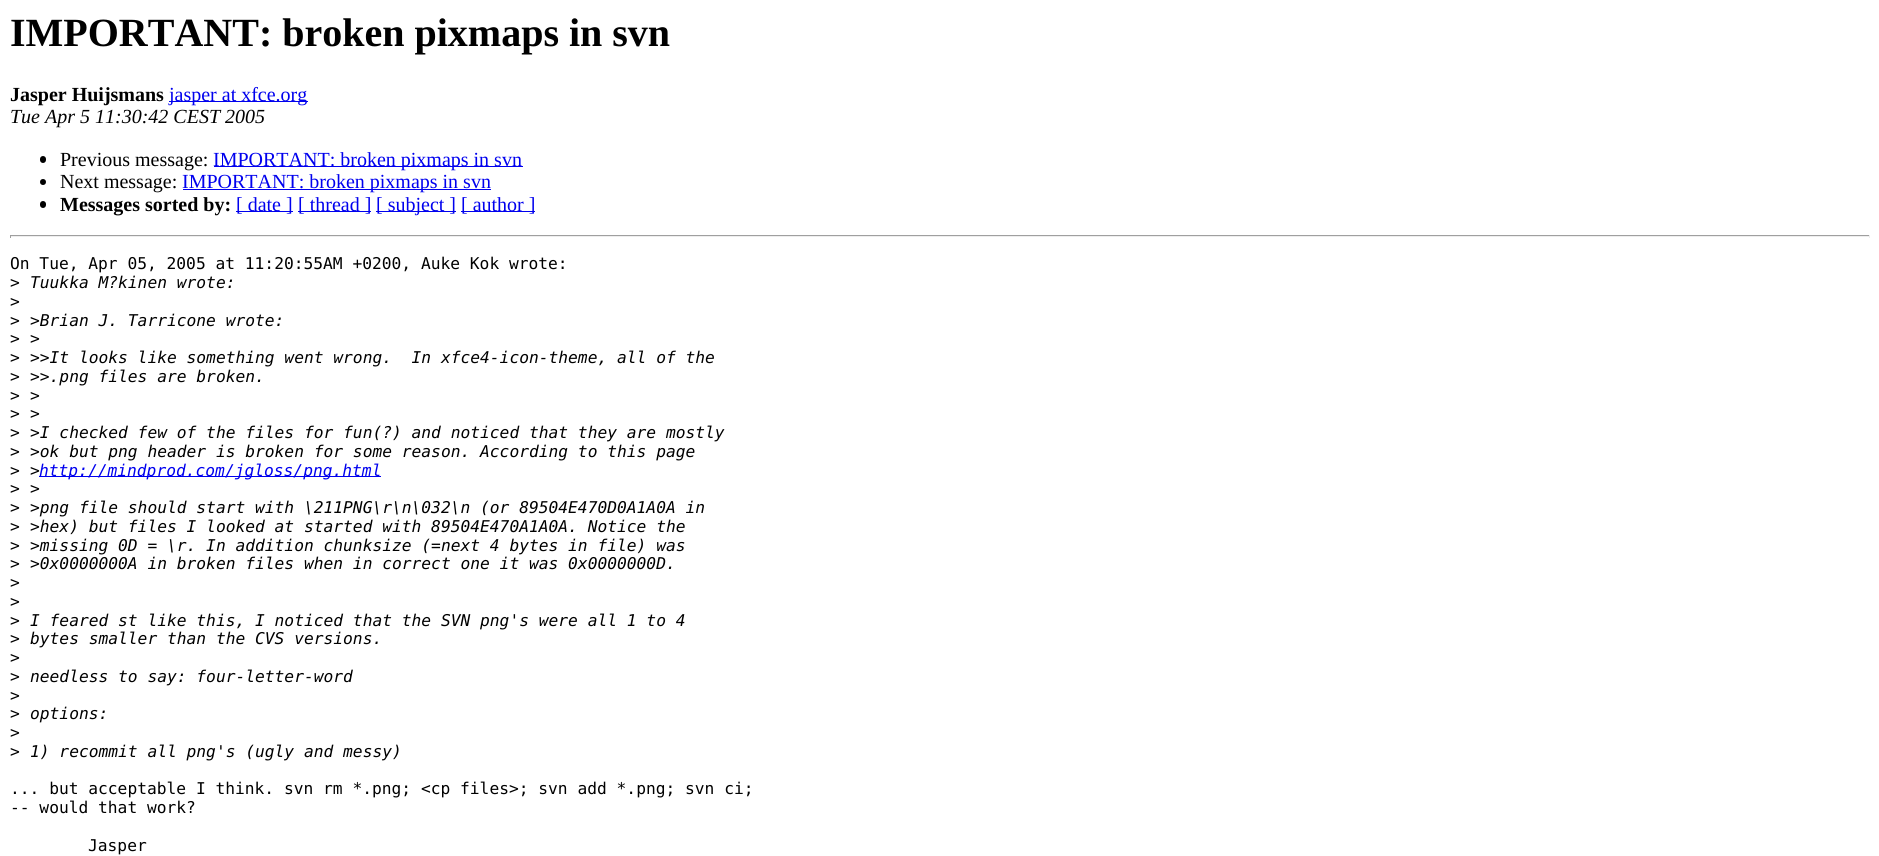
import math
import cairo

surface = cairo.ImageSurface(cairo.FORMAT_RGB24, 1879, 856)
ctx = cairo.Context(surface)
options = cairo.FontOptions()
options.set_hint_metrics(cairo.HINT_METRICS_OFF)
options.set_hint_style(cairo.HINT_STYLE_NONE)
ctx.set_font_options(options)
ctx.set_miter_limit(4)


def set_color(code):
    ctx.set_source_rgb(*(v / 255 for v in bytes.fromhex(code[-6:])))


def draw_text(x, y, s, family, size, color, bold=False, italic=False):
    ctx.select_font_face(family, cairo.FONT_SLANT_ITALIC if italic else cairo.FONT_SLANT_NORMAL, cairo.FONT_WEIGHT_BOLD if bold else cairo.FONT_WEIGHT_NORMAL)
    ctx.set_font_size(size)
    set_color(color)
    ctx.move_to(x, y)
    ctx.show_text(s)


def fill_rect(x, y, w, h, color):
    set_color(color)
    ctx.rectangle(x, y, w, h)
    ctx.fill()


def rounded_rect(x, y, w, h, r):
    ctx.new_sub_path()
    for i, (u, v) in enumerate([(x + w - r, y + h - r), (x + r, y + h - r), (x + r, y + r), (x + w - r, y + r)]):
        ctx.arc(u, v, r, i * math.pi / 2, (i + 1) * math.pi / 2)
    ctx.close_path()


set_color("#ffffff")
ctx.paint()
draw_text(10, 46, "IMPORTANT: broken pixmaps in svn", "Liberation Serif", 40, "#000000", bold=True)
draw_text(10, 101, "Jasper Huijsmans", "Liberation Serif", 20, "#000000", bold=True)
fill_rect(169, 101, 139, 1, "#0000ee")
draw_text(169, 101, "jasper at xfce.org", "Liberation Serif", 20, "#0000ee")
draw_text(10, 123, "Tue Apr 5 11:30:42 CEST 2005", "Liberation Serif", 20, "#000000", italic=True)
rounded_rect(40, 156, 6, 7, 3)
ctx.fill()
draw_text(60, 166, "Previous message:", "Liberation Serif", 20, "#000000")
fill_rect(214, 166, 309, 1, "#0000ee")
draw_text(213, 166, "IMPORTANT: broken pixmaps in svn", "Liberation Serif", 20, "#0000ee")
set_color("#000000")
ctx.new_path()
ctx.arc(43, 182, 3, 0, 2 * math.pi)
ctx.fill()
draw_text(60, 188, "Next message:", "Liberation Serif", 20, "#000000")
fill_rect(183, 189, 308, 1, "#0000ee")
draw_text(182, 188, "IMPORTANT: broken pixmaps in svn", "Liberation Serif", 20, "#0000ee")
set_color("#000000")
rounded_rect(40, 201, 6, 7, 3)
ctx.fill()
draw_text(60, 211, "Messages sorted by:", "Liberation Serif", 20, "#000000", bold=True)
fill_rect(236, 211, 57, 1, "#0000ee")
draw_text(236, 211, "[ date ]", "Liberation Serif", 20, "#0000ee")
fill_rect(298, 211, 73, 1, "#0000ee")
draw_text(298, 211, "[ thread ]", "Liberation Serif", 20, "#0000ee")
fill_rect(376, 211, 80, 1, "#0000ee")
draw_text(376, 211, "[ subject ]", "Liberation Serif", 20, "#0000ee")
fill_rect(461, 211, 74, 1, "#0000ee")
draw_text(461, 211, "[ author ]", "Liberation Serif", 20, "#0000ee")
fill_rect(10, 235, 1860, 1, "#9f9f9f")
fill_rect(1869, 235, 1, 3, "#eeeeee")
fill_rect(10, 236, 1860, 1, "#eeeeee")
fill_rect(10, 235, 1, 3, "#9f9f9f")
draw_text(10, 269, "On Tue, Apr 05, 2005 at 11:20:55AM +0200, Auke Kok wrote:", "DejaVu Sans Mono", 16.25, "#000000")
draw_text(10, 288, ">", "DejaVu Sans Mono", 16.25, "#000000")
draw_text(30, 288, "Tuukka M?kinen wrote:", "DejaVu Sans Mono", 16.25, "#000000", italic=True)
draw_text(10, 307, ">", "DejaVu Sans Mono", 16.25, "#000000")
draw_text(10, 326, ">", "DejaVu Sans Mono", 16.25, "#000000")
draw_text(30, 326, ">Brian J. Tarricone wrote:", "DejaVu Sans Mono", 16.25, "#000000", italic=True)
draw_text(10, 344, ">", "DejaVu Sans Mono", 16.25, "#000000")
draw_text(30, 344, ">", "DejaVu Sans Mono", 16.25, "#000000", italic=True)
draw_text(10, 363, ">", "DejaVu Sans Mono", 16.25, "#000000")
draw_text(30, 363, ">>It looks like something went wrong.  In xfce4-icon-theme, all of the", "DejaVu Sans Mono", 16.25, "#000000", italic=True)
draw_text(10, 382, ">", "DejaVu Sans Mono", 16.25, "#000000")
draw_text(30, 382, ">>.png files are broken.", "DejaVu Sans Mono", 16.25, "#000000", italic=True)
draw_text(10, 401, ">", "DejaVu Sans Mono", 16.25, "#000000")
draw_text(30, 401, ">", "DejaVu Sans Mono", 16.25, "#000000", italic=True)
draw_text(10, 419, ">", "DejaVu Sans Mono", 16.25, "#000000")
draw_text(30, 419, ">", "DejaVu Sans Mono", 16.25, "#000000", italic=True)
draw_text(10, 438, ">", "DejaVu Sans Mono", 16.25, "#000000")
draw_text(30, 438, ">I checked few of the files for fun(?) and noticed that they are mostly", "DejaVu Sans Mono", 16.25, "#000000", italic=True)
draw_text(10, 457, ">", "DejaVu Sans Mono", 16.25, "#000000")
draw_text(30, 457, ">ok but png header is broken for some reason. According to this page", "DejaVu Sans Mono", 16.25, "#000000", italic=True)
draw_text(10, 476, ">", "DejaVu Sans Mono", 16.25, "#000000")
draw_text(30, 476, ">", "DejaVu Sans Mono", 16.25, "#000000", italic=True)
fill_rect(39, 476, 342, 1, "#0000ee")
draw_text(39, 476, "http://mindprod.com/jgloss/png.html", "DejaVu Sans Mono", 16.25, "#0000ee", italic=True)
draw_text(10, 494, ">", "DejaVu Sans Mono", 16.25, "#000000")
draw_text(30, 494, ">", "DejaVu Sans Mono", 16.25, "#000000", italic=True)
draw_text(10, 513, ">", "DejaVu Sans Mono", 16.25, "#000000")
draw_text(30, 513, ">png file should start with \\211PNG\\r\\n\\032\\n (or 89504E470D0A1A0A in", "DejaVu Sans Mono", 16.25, "#000000", italic=True)
draw_text(10, 532, ">", "DejaVu Sans Mono", 16.25, "#000000")
draw_text(30, 532, ">hex) but files I looked at started with 89504E470A1A0A. Notice the", "DejaVu Sans Mono", 16.25, "#000000", italic=True)
draw_text(10, 551, ">", "DejaVu Sans Mono", 16.25, "#000000")
draw_text(30, 551, ">missing 0D = \\r. In addition chunksize (=next 4 bytes in file) was", "DejaVu Sans Mono", 16.25, "#000000", italic=True)
draw_text(10, 569, ">", "DejaVu Sans Mono", 16.25, "#000000")
draw_text(30, 569, ">0x0000000A in broken files when in correct one it was 0x0000000D.", "DejaVu Sans Mono", 16.25, "#000000", italic=True)
draw_text(10, 588, ">", "DejaVu Sans Mono", 16.25, "#000000")
draw_text(10, 607, ">", "DejaVu Sans Mono", 16.25, "#000000")
draw_text(10, 626, ">", "DejaVu Sans Mono", 16.25, "#000000")
draw_text(30, 626, "I feared st like this, I noticed that the SVN png's were all 1 to 4", "DejaVu Sans Mono", 16.25, "#000000", italic=True)
draw_text(10, 644, ">", "DejaVu Sans Mono", 16.25, "#000000")
draw_text(30, 644, "bytes smaller than the CVS versions.", "DejaVu Sans Mono", 16.25, "#000000", italic=True)
draw_text(10, 663, ">", "DejaVu Sans Mono", 16.25, "#000000")
draw_text(10, 682, ">", "DejaVu Sans Mono", 16.25, "#000000")
draw_text(30, 682, "needless to say: four-letter-word", "DejaVu Sans Mono", 16.25, "#000000", italic=True)
draw_text(10, 701, ">", "DejaVu Sans Mono", 16.25, "#000000")
draw_text(10, 719, ">", "DejaVu Sans Mono", 16.25, "#000000")
draw_text(30, 719, "options:", "DejaVu Sans Mono", 16.25, "#000000", italic=True)
draw_text(10, 738, ">", "DejaVu Sans Mono", 16.25, "#000000")
draw_text(10, 757, ">", "DejaVu Sans Mono", 16.25, "#000000")
draw_text(30, 757, "1) recommit all png's (ugly and messy)", "DejaVu Sans Mono", 16.25, "#000000", italic=True)
draw_text(10, 794, "... but acceptable I think. svn rm *.png; <cp files>; svn add *.png; svn ci;", "DejaVu Sans Mono", 16.25, "#000000")
draw_text(10, 813, "-- would that work?", "DejaVu Sans Mono", 16.25, "#000000")
draw_text(88, 851, "Jasper", "DejaVu Sans Mono", 16.25, "#000000")
surface.write_to_png("output.png")
